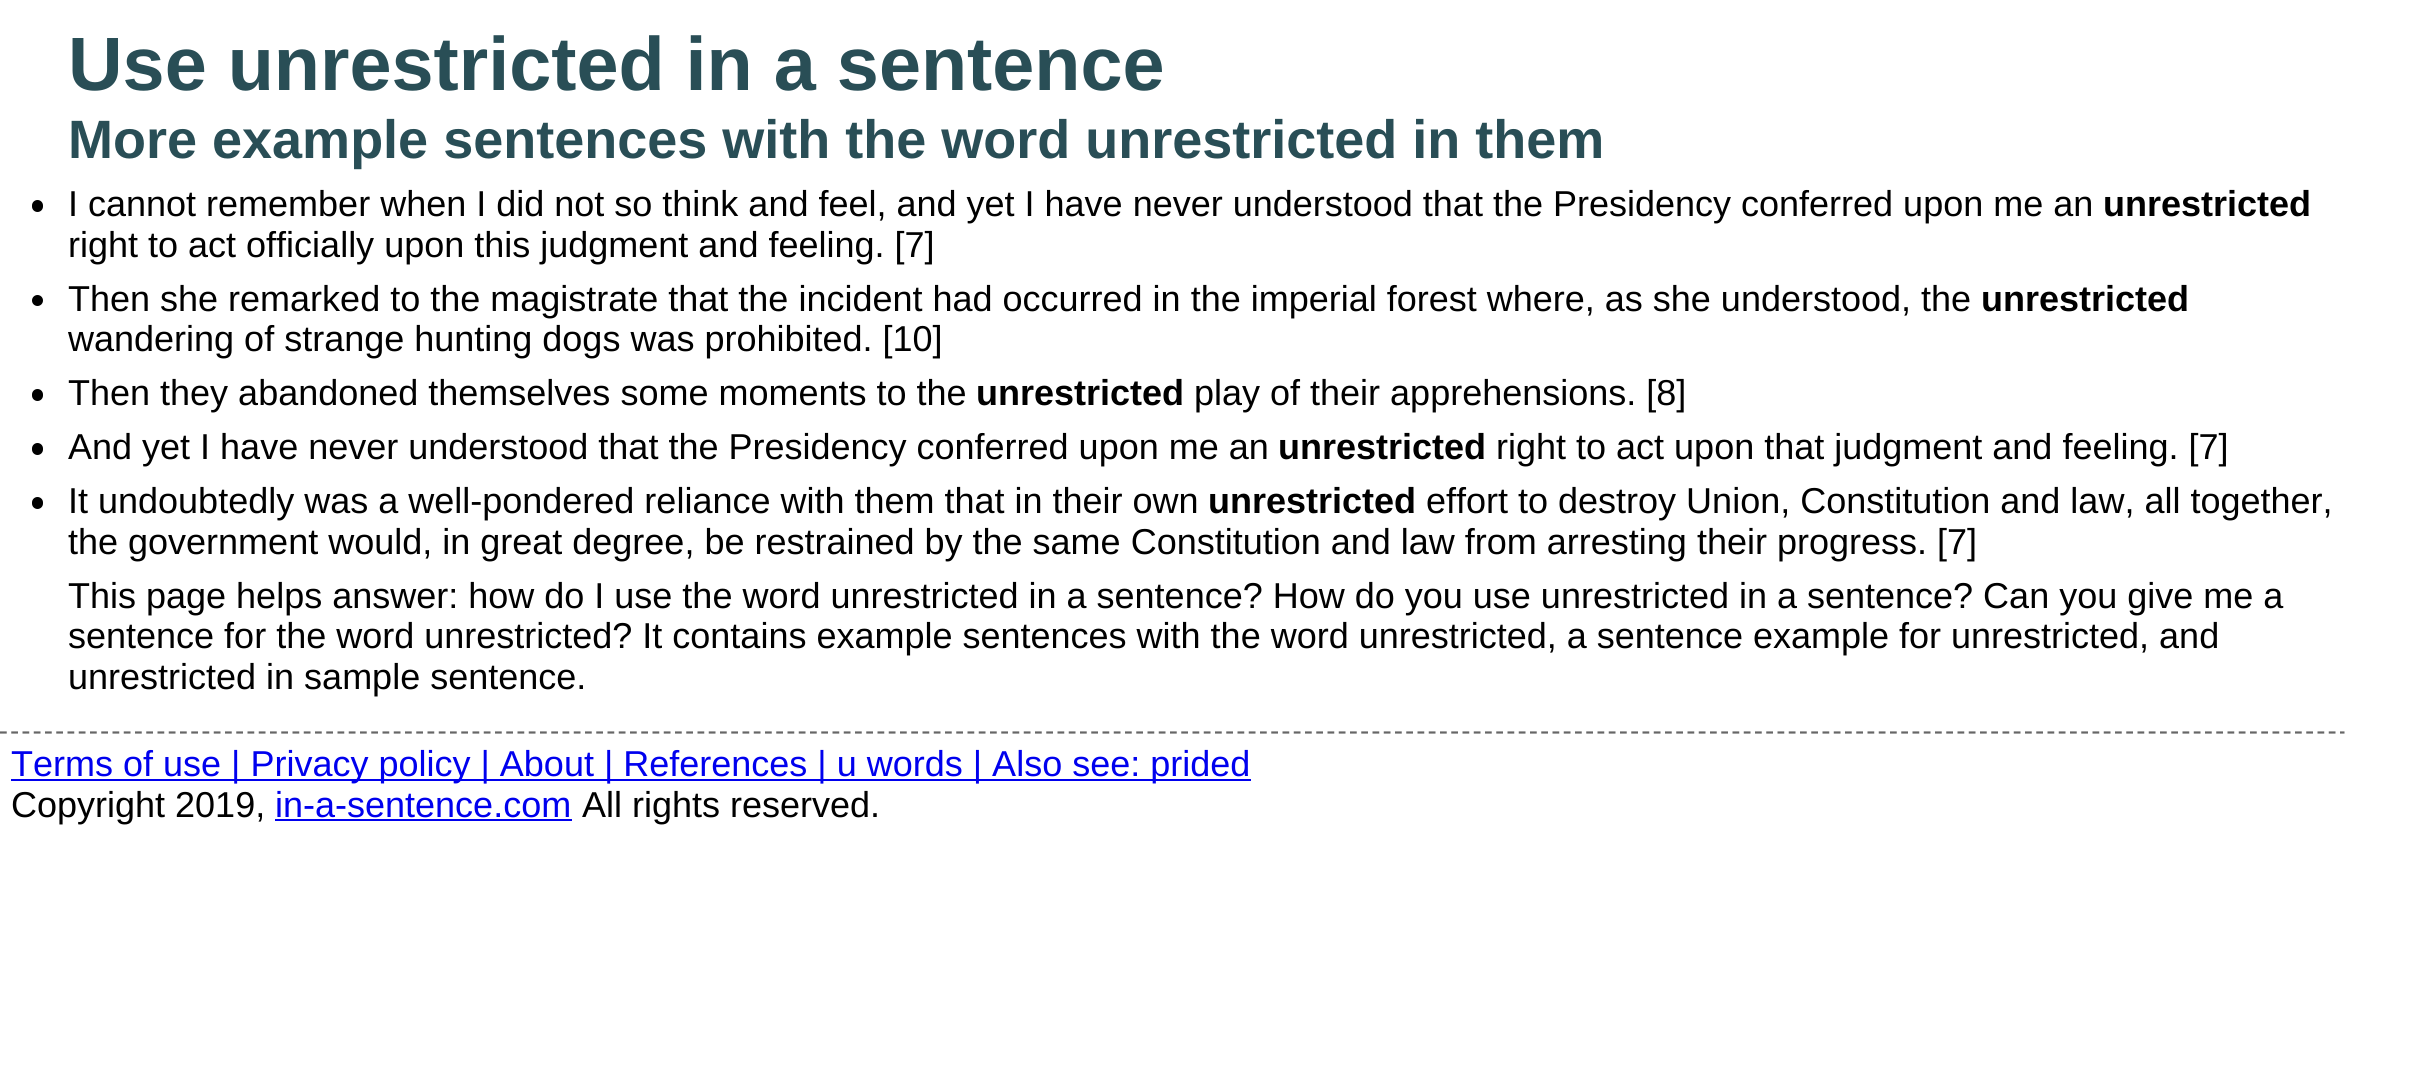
import math
import cairo

surface = cairo.ImageSurface(cairo.FORMAT_RGB24, 2410, 1077)
ctx = cairo.Context(surface)
options = cairo.FontOptions()
options.set_hint_metrics(cairo.HINT_METRICS_OFF)
options.set_hint_style(cairo.HINT_STYLE_NONE)
ctx.set_font_options(options)
ctx.set_miter_limit(4)


def set_color(code):
    ctx.set_source_rgb(*(v / 255 for v in bytes.fromhex(code[-6:])))


def draw_text(x, y, s, family, size, color, bold=False, italic=False):
    ctx.select_font_face(family, cairo.FONT_SLANT_ITALIC if italic else cairo.FONT_SLANT_NORMAL, cairo.FONT_WEIGHT_BOLD if bold else cairo.FONT_WEIGHT_NORMAL)
    ctx.set_font_size(size)
    set_color(color)
    ctx.move_to(x, y)
    ctx.show_text(s)


def fill_rect(x, y, w, h, color):
    set_color(color)
    ctx.rectangle(x, y, w, h)
    ctx.fill()


def rounded_rect(x, y, w, h, r):
    ctx.new_sub_path()
    for i, (u, v) in enumerate([(x + w - r, y + h - r), (x + r, y + h - r), (x + r, y + r), (x + w - r, y + r)]):
        ctx.arc(u, v, r, i * math.pi / 2, (i + 1) * math.pi / 2)
    ctx.close_path()


set_color("#ffffff")
ctx.paint()
draw_text(68, 90, "Use unrestricted in a sentence", "Liberation Sans", 75.6, "#294e56", bold=True)
draw_text(68, 158, "More example sentences with the word unrestricted in them", "Liberation Sans", 54, "#294e56", bold=True)
set_color("#000000")
rounded_rect(32, 200, 11, 12, 5.5)
ctx.fill()
draw_text(68, 216, "I cannot remember when I did not so think and feel, and yet I have never understood that the Presidency conferred upon me an", "Liberation Sans", 36, "#000000")
draw_text(2103, 216, "unrestricted", "Liberation Sans", 36, "#000000", bold=True)
draw_text(68, 257, "right to act officially upon this judgment and feeling. [7]", "Liberation Sans", 36, "#000000")
ctx.new_path()
ctx.arc(37.5, 300.5, 5.5, 0, 2 * math.pi)
ctx.fill()
draw_text(68, 311, "Then she remarked to the magistrate that the incident had occurred in the imperial forest where, as she understood, the", "Liberation Sans", 36, "#000000")
draw_text(1981, 311, "unrestricted", "Liberation Sans", 36, "#000000", bold=True)
draw_text(68, 351, "wandering of strange hunting dogs was prohibited. [10]", "Liberation Sans", 36, "#000000")
rounded_rect(32, 389, 11, 12, 5.5)
ctx.fill()
draw_text(68, 405, "Then they abandoned themselves some moments to the", "Liberation Sans", 36, "#000000")
draw_text(976, 405, "unrestricted", "Liberation Sans", 36, "#000000", bold=True)
draw_text(1194, 405, "play of their apprehensions. [8]", "Liberation Sans", 36, "#000000")
rounded_rect(32, 443, 11, 12, 5.5)
ctx.fill()
draw_text(68, 459, "And yet I have never understood that the Presidency conferred upon me an", "Liberation Sans", 36, "#000000")
draw_text(1278, 459, "unrestricted", "Liberation Sans", 36, "#000000", bold=True)
draw_text(1496, 459, "right to act upon that judgment and feeling. [7]", "Liberation Sans", 36, "#000000")
rounded_rect(32, 497, 11, 12, 5.5)
ctx.fill()
draw_text(68, 513, "It undoubtedly was a well-pondered reliance with them that in their own", "Liberation Sans", 36, "#000000")
draw_text(1208, 513, "unrestricted", "Liberation Sans", 36, "#000000", bold=True)
draw_text(1426, 513, "effort to destroy Union, Constitution and law, all together,", "Liberation Sans", 36, "#000000")
draw_text(68, 554, "the government would, in great degree, be restrained by the same Constitution and law from arresting their progress. [7]", "Liberation Sans", 36, "#000000")
draw_text(68, 608, "This page helps answer: how do I use the word unrestricted in a sentence? How do you use unrestricted in a sentence? Can you give me a", "Liberation Sans", 36, "#000000")
draw_text(68, 648, "sentence for the word unrestricted? It contains example sentences with the word unrestricted, a sentence example for unrestricted, and", "Liberation Sans", 36, "#000000")
draw_text(68, 689, "unrestricted in sample sentence.", "Liberation Sans", 36, "#000000")
ctx.new_path()
ctx.move_to(0, 732.5)
ctx.line_to(2344.5, 732.5)
set_color("#666666")
ctx.set_line_width(2.2)
ctx.set_dash([6.75, 4.5])
ctx.stroke()
fill_rect(11, 779, 1240, 2, "#0000ee")
draw_text(11, 776, "Terms of use | Privacy policy | About | References | u words | Also see: prided", "Liberation Sans", 36, "#0000ee")
draw_text(11, 817, "Copyright 2019,", "Liberation Sans", 36, "#000000")
draw_text(275, 817, "in-a-sentence.com", "Liberation Sans", 36, "#0000ee")
fill_rect(275, 819, 297, 2, "#0000ee")
draw_text(582, 817, "All rights reserved.", "Liberation Sans", 36, "#000000")
surface.write_to_png("output.png")
